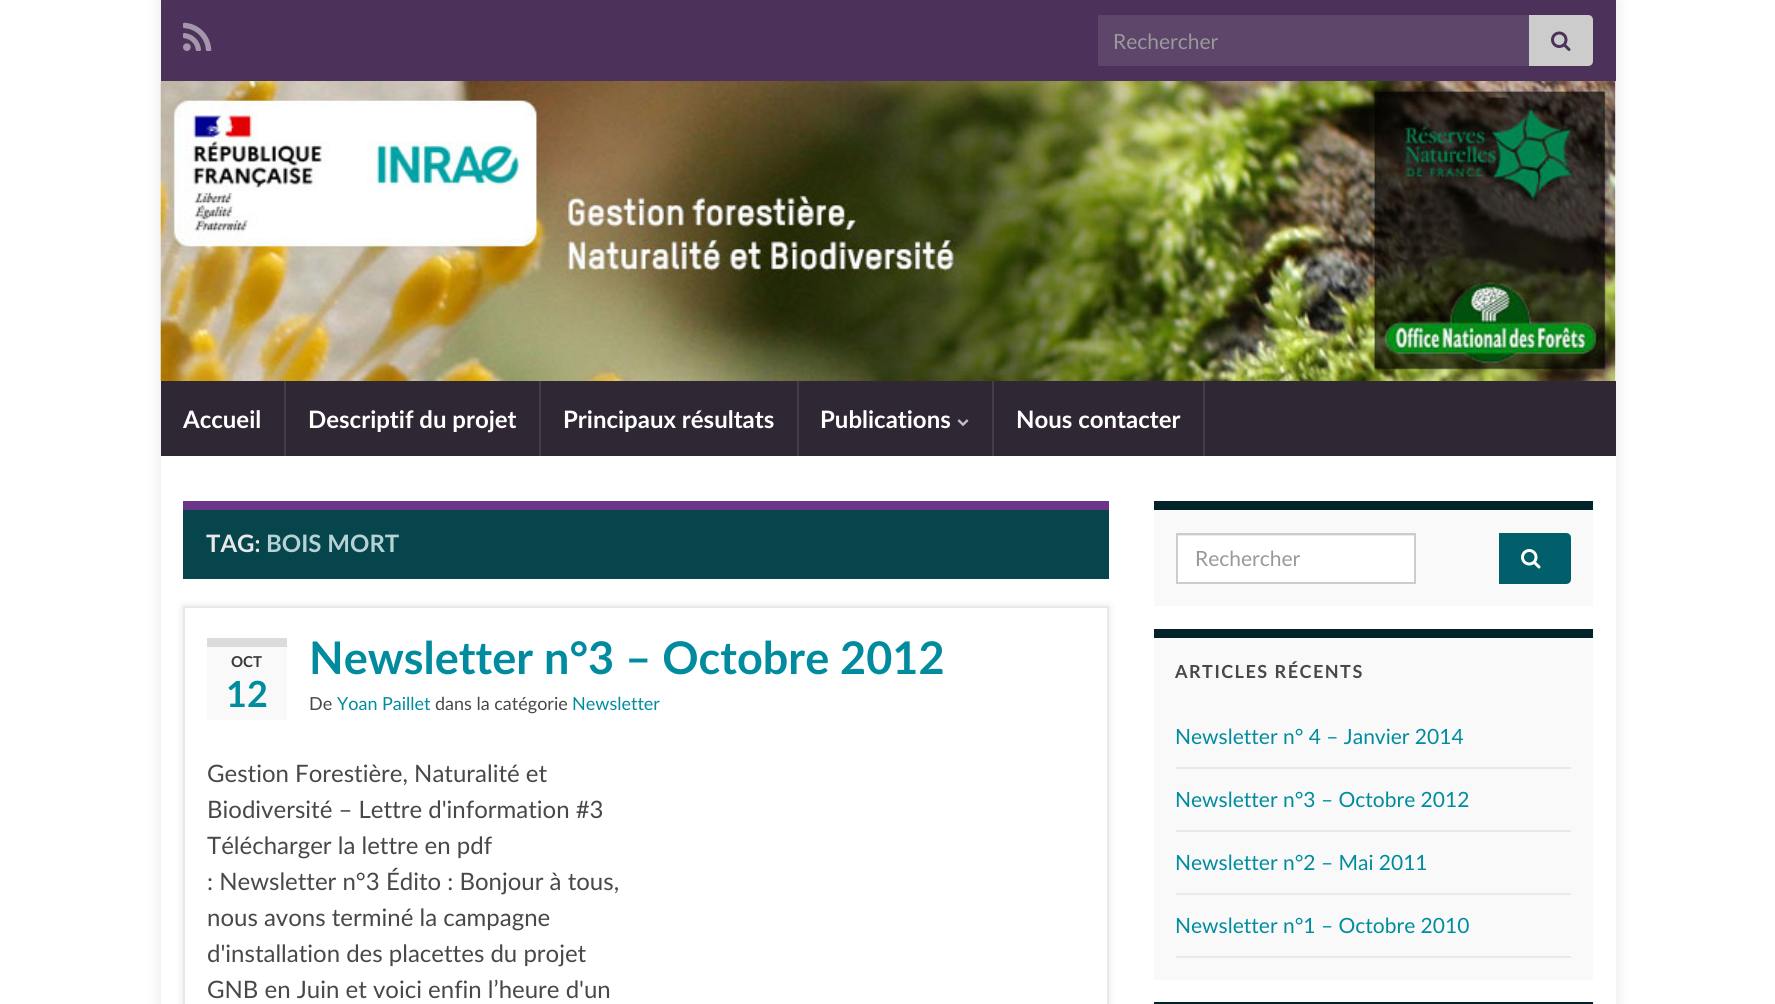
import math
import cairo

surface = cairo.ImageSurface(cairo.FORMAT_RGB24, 1775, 1004)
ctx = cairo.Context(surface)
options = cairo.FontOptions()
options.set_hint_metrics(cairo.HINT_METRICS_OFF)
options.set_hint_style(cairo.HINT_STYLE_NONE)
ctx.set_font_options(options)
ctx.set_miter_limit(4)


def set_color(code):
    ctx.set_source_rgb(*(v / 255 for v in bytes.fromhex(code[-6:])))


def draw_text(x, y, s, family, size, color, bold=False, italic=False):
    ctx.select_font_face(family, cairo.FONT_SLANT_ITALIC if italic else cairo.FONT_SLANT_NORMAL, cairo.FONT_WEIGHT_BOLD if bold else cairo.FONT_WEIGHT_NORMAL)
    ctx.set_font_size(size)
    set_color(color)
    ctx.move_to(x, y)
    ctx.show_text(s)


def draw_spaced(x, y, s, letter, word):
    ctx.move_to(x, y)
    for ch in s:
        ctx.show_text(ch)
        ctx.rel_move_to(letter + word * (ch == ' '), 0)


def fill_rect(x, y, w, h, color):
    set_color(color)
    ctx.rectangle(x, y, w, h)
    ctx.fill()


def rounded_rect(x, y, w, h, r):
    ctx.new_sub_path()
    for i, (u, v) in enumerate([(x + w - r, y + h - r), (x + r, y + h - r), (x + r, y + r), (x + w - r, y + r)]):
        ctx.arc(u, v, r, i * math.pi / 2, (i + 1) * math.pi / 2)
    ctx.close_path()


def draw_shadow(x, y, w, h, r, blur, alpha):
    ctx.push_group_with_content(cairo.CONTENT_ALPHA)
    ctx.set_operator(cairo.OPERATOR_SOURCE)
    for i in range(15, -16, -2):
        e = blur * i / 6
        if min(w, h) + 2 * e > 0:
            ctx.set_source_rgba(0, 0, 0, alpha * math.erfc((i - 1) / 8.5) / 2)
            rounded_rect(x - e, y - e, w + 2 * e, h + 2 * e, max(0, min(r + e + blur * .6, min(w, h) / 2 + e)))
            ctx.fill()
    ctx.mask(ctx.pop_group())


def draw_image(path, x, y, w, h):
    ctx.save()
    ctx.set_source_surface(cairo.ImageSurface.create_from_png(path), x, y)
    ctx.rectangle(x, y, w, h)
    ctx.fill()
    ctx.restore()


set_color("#ffffff")
ctx.paint()
set_color("#000000")
draw_shadow(161, 0, 1455, 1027, 0, 7.5, 0.1)
fill_rect(161, 0, 1455, 81, "#4c315a")
draw_image("assets/img1.png", 183, 22, 29, 29)
fill_rect(1098, 15, 431, 51, "#5e466b")
draw_text(1113, 49, "Rechercher", "Lato", 21, "#999999")
set_color("#cccccc")
ctx.new_path()
ctx.move_to(1529, 15)
ctx.line_to(1588, 15)
ctx.curve_to(1591, 15, 1593, 17, 1593, 20)
ctx.line_to(1593, 61)
ctx.curve_to(1593, 64, 1591, 66, 1588, 66)
ctx.line_to(1529, 66)
ctx.close_path()
ctx.fill()
draw_image("assets/img2.png", 1551, 31, 20, 20)
fill_rect(1615, 81, 1, 300, "#ffffff")
draw_image("assets/img3.png", 160, 81, 1456, 300)
fill_rect(161, 381, 1455, 75, "#2f2733")
fill_rect(284, 381, 2, 75, "#443d47")
draw_text(183, 428, "Accueil", "Lato", 24, "#ffffff", bold=True)
fill_rect(539, 381, 2, 75, "#443d47")
draw_text(308, 428, "Descriptif du projet", "Lato", 24, "#ffffff", bold=True)
fill_rect(797, 381, 2, 75, "#443d47")
draw_text(563, 428, "Principaux résultats", "Lato", 24, "#ffffff", bold=True)
fill_rect(992, 381, 2, 75, "#443d47")
draw_text(820, 428, "Publications", "Lato", 24, "#ffffff", bold=True)
draw_image("assets/img4.png", 957, 419, 12, 8)
fill_rect(1203, 381, 2, 75, "#443d47")
draw_text(1016, 428, "Nous contacter", "Lato", 24, "#ffffff", bold=True)
fill_rect(161, 456, 1455, 548, "#ffffff")
fill_rect(183, 510, 926, 69, "#06454c")
fill_rect(183, 501, 926, 9, "#6b3589")
draw_text(206, 552, "TAG:", "Lato", 24, "#eae9e9", bold=True)
draw_text(266, 552, "BOIS MORT", "Lato", 24, "#b6d2d5", bold=True)
set_color("#000000")
draw_shadow(183, 606, 926, 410, 0, 4, 0.1)
set_color("#ffffff")
ctx.rectangle(184, 607, 924, 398)
ctx.fill_preserve()
set_color("#e9e8e3")
ctx.stroke()
fill_rect(207, 647, 80, 73, "#f9f9f9")
fill_rect(207, 638, 80, 9, "#dbdbdb")
draw_text(231, 667, "OCT", "Lato", 15, "#3b383d", bold=True)
draw_text(226, 707, "12", "Lato", 36, "#008c9e", bold=True)
draw_text(309, 674, "Newsletter n°3 – Octobre 2012", "Lato", 45, "#008c9e", bold=True)
draw_text(309, 710, "De", "Lato", 18, "#4a474b")
draw_text(337, 710, "Yoan Paillet", "Lato", 18, "#008c9e")
draw_text(435, 710, "dans la catégorie", "Lato", 18, "#4a474b")
draw_text(572, 710, "Newsletter", "Lato", 18, "#008c9e")
draw_text(207, 782, "Gestion Forestière, Naturalité et", "Lato", 24, "#4a474b")
draw_text(207, 818, "Biodiversité – Lettre d'information #3", "Lato", 24, "#4a474b")
draw_text(207, 854, "Télécharger la lettre en pdf", "Lato", 24, "#4a474b")
draw_text(207, 890, ": Newsletter n°3 Édito : Bonjour à tous,", "Lato", 24, "#4a474b")
draw_text(207, 926, "nous avons terminé la campagne", "Lato", 24, "#4a474b")
draw_text(207, 962, "d'installation des placettes du projet", "Lato", 24, "#4a474b")
draw_text(207, 998, "GNB en Juin et voici enfin l’heure d'un", "Lato", 24, "#4a474b")
fill_rect(1154, 510, 439, 96, "#f9f9f9")
fill_rect(1154, 501, 439, 9, "#022328")
fill_rect(1178, 536, 236, 46, "#ffffff")
fill_rect(1178, 535, 237, 1, "#ececec")
ctx.rectangle(1177, 534, 238, 49)
set_color("#cccccc")
ctx.stroke()
draw_text(1195, 566, "Rechercher", "Lato", 21, "#999999")
set_color("#005f6b")
ctx.new_path()
ctx.move_to(1499, 533)
ctx.line_to(1566, 533)
ctx.curve_to(1569, 533, 1571, 535, 1571, 538)
ctx.line_to(1571, 579)
ctx.curve_to(1571, 582, 1569, 584, 1566, 584)
ctx.line_to(1499, 584)
ctx.close_path()
ctx.fill()
draw_image("assets/img5.png", 1521, 549, 20, 20)
fill_rect(1154, 638, 439, 342, "#f9f9f9")
fill_rect(1154, 629, 439, 9, "#022328")
ctx.select_font_face("Lato", cairo.FONT_SLANT_NORMAL, cairo.FONT_WEIGHT_BOLD)
ctx.set_font_size(18)
set_color("#4a474b")
draw_spaced(1175, 678, "ARTICLES RÉCENTS", 1.5, 0)
fill_rect(1176, 767, 395, 2, "#e9e9e9")
draw_text(1175, 744, "Newsletter n° 4 – Janvier 2014", "Lato", 21, "#008c9e")
fill_rect(1176, 830, 395, 2, "#e9e9e9")
draw_text(1175, 807, "Newsletter n°3 – Octobre 2012", "Lato", 21, "#008c9e")
fill_rect(1176, 893, 395, 2, "#e9e9e9")
draw_text(1175, 870, "Newsletter n°2 – Mai 2011", "Lato", 21, "#008c9e")
fill_rect(1176, 956, 395, 2, "#e9e9e9")
draw_text(1175, 933, "Newsletter n°1 – Octobre 2010", "Lato", 21, "#008c9e")
fill_rect(1154, 1002, 439, 2, "#022328")
surface.write_to_png("output.png")
